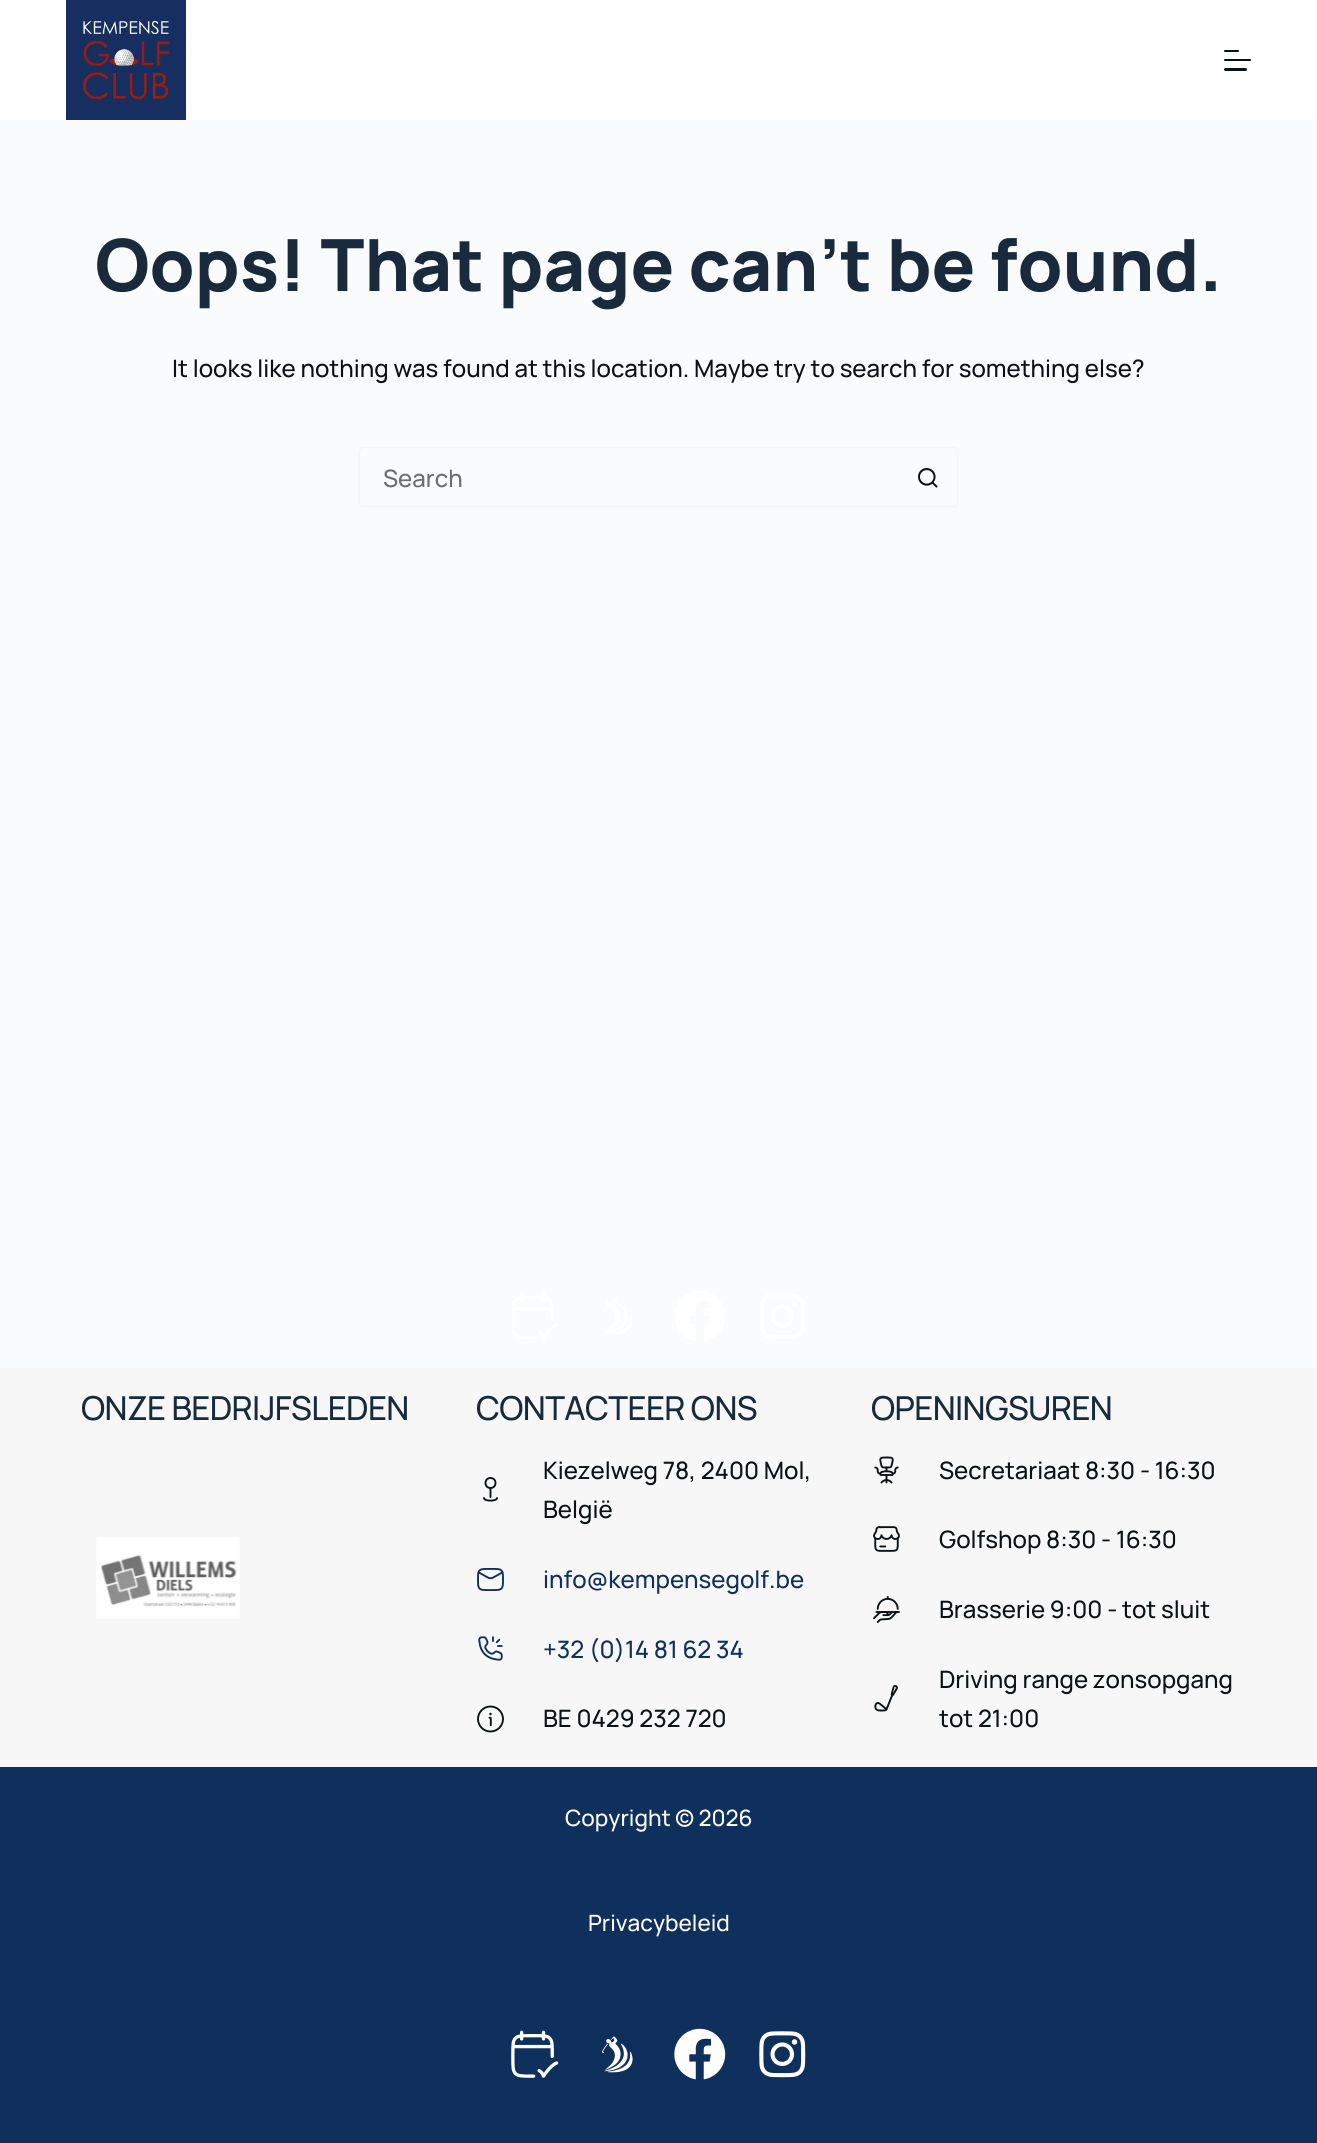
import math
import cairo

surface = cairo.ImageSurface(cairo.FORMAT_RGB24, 1317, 2143)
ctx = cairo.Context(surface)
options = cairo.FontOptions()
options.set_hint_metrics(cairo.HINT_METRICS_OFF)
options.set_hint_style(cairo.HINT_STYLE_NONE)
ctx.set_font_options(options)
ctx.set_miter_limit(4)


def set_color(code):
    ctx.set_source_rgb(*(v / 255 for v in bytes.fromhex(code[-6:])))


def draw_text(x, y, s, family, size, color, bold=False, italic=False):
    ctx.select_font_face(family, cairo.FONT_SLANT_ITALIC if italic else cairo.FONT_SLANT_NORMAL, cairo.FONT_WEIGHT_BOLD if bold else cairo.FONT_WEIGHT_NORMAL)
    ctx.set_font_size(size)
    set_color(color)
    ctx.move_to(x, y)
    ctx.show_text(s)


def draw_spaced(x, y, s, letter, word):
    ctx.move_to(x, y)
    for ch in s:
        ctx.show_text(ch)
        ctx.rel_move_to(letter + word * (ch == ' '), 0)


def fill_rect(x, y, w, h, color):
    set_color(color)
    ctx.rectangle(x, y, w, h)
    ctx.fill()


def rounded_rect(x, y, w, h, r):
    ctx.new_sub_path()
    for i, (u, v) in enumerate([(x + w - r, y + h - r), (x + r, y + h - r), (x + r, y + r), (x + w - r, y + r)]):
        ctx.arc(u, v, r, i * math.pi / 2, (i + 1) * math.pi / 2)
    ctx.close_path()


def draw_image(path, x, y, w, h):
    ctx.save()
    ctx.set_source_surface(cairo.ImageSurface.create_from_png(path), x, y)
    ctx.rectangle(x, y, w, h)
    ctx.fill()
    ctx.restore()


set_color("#fafbfc")
ctx.paint()
fill_rect(0, 0, 1317, 120, "#ffffff")
draw_image("assets/img1.png", 66, 0, 120, 120)
set_color("#0b1215")
rounded_rect(1224, 50, 15, 2, 1)
ctx.fill()
rounded_rect(1224, 59, 27, 2, 1)
ctx.fill()
rounded_rect(1224, 68, 23, 3, 1.5)
ctx.fill()
draw_text(95, 291, "Oops! That page can’t be found.", "Manrope ExtraBold", 72, "#192a3d")
draw_text(172, 377, "It looks like nothing was found at this location. Maybe try to search for something else?", "Manrope Medium", 24, "#0b1215")
set_color("#f5f5f5")
ctx.set_fill_rule(cairo.FILL_RULE_EVEN_ODD)
ctx.new_path()
ctx.move_to(363, 447)
ctx.line_to(898, 447)
ctx.line_to(898, 507)
ctx.line_to(363, 507)
ctx.curve_to(361, 507, 358, 505, 358, 502)
ctx.line_to(358, 452)
ctx.curve_to(358, 449, 361, 447, 363, 447)
ctx.close_path()
ctx.move_to(363, 448)
ctx.line_to(898, 448)
ctx.line_to(898, 506)
ctx.line_to(363, 506)
ctx.curve_to(361, 506, 360, 504, 360, 502)
ctx.line_to(360, 452)
ctx.curve_to(360, 450, 361, 448, 363, 448)
ctx.close_path()
ctx.fill()
draw_text(383, 487, "Search", "Manrope Medium", 24, "#6b6f71")
set_color("#f5f5f5")
ctx.new_path()
ctx.move_to(898, 447)
ctx.line_to(954, 447)
ctx.curve_to(956, 447, 958, 449, 958, 452)
ctx.line_to(958, 502)
ctx.curve_to(958, 505, 956, 507, 954, 507)
ctx.line_to(898, 507)
ctx.close_path()
ctx.move_to(898, 448)
ctx.line_to(954, 448)
ctx.curve_to(956, 448, 957, 450, 957, 452)
ctx.line_to(957, 502)
ctx.curve_to(957, 504, 956, 506, 954, 506)
ctx.line_to(898, 506)
ctx.close_path()
ctx.fill()
draw_image("assets/img2.png", 918, 468, 20, 20)
draw_image("assets/img3.png", 512, 1293, 46, 46)
draw_image("assets/img4.png", 602, 1299, 30, 35)
draw_image("assets/img5.png", 675, 1291, 50, 50)
draw_image("assets/img6.png", 760, 1294, 45, 45)
fill_rect(0, 1368, 1317, 399, "#f7f7f7")
ctx.set_font_size(33)
set_color("#192a3d")
draw_spaced(81, 1420, "ONZE BEDRIJFSLEDEN", -0.6, 0)
draw_image("assets/img7.png", 96, 1537, 144, 82)
draw_spaced(476, 1420, "CONTACTEER ONS", -0.6, 0)
ctx.new_path()
ctx.arc(490.5, 1483, 5, 0, 2 * math.pi)
set_color("#0b1215")
ctx.set_line_width(1.9)
ctx.stroke()
ctx.new_path()
ctx.move_to(490.5, 1488)
ctx.line_to(490.5, 1497)
ctx.move_to(497, 1498)
ctx.curve_to(497, 1501.5, 484, 1501.5, 484, 1498)
ctx.set_line_cap(cairo.LINE_CAP_ROUND)
ctx.stroke()
draw_text(543, 1479, "Kiezelweg 78, 2400 Mol,", "Manrope Medium", 24, "#0b1215")
draw_text(543, 1518, "België", "Manrope Medium", 24, "#0b1215")
draw_image("assets/img8.png", 477, 1568, 27, 23)
draw_text(543, 1588, "info@kempensegolf.be", "Manrope Medium", 24, "#0f2f5c")
draw_image("assets/img9.png", 478, 1636, 25, 25)
draw_text(543, 1658, "+32 (0)14 81 62 34", "Manrope Medium", 24, "#0f2f5c")
draw_image("assets/img10.png", 477, 1705, 27, 28)
draw_text(543, 1727, "BE 0429 232 720", "Manrope Medium", 24, "#0b1215")
ctx.set_font_size(33)
set_color("#192a3d")
draw_spaced(871, 1420, "OPENINGSUREN", -0.6, 0)
draw_image("assets/img11.png", 874, 1456, 25, 28)
draw_text(939, 1479, "Secretariaat 8:30 - 16:30", "Manrope Medium", 24, "#0b1215")
draw_image("assets/img12.png", 873, 1526, 27, 26)
draw_text(939, 1548, "Golfshop 8:30 - 16:30", "Manrope Medium", 24, "#0b1215")
draw_image("assets/img13.png", 873, 1596, 27, 27)
draw_text(939, 1618, "Brasserie 9:00 - tot sluit", "Manrope Medium", 24, "#0b1215")
draw_image("assets/img14.png", 874, 1685, 24, 27)
draw_text(939, 1688, "Driving range zonsopgang", "Manrope Medium", 24, "#0b1215")
draw_text(939, 1727, "tot 21:00", "Manrope Medium", 24, "#0b1215")
fill_rect(0, 1767, 1317, 376, "#0f2f5c")
draw_text(565, 1826, "Copyright © 2026", "Manrope Medium", 22.5, "#ffffff")
draw_text(588, 1931, "Privacybeleid", "Manrope Medium", 22.5, "#ffffff")
draw_image("assets/img15.png", 511, 2030, 48, 48)
draw_image("assets/img16.png", 602, 2036, 31, 37)
draw_image("assets/img17.png", 674, 2028, 52, 52)
draw_image("assets/img18.png", 759, 2031, 47, 47)
surface.write_to_png("output.png")
